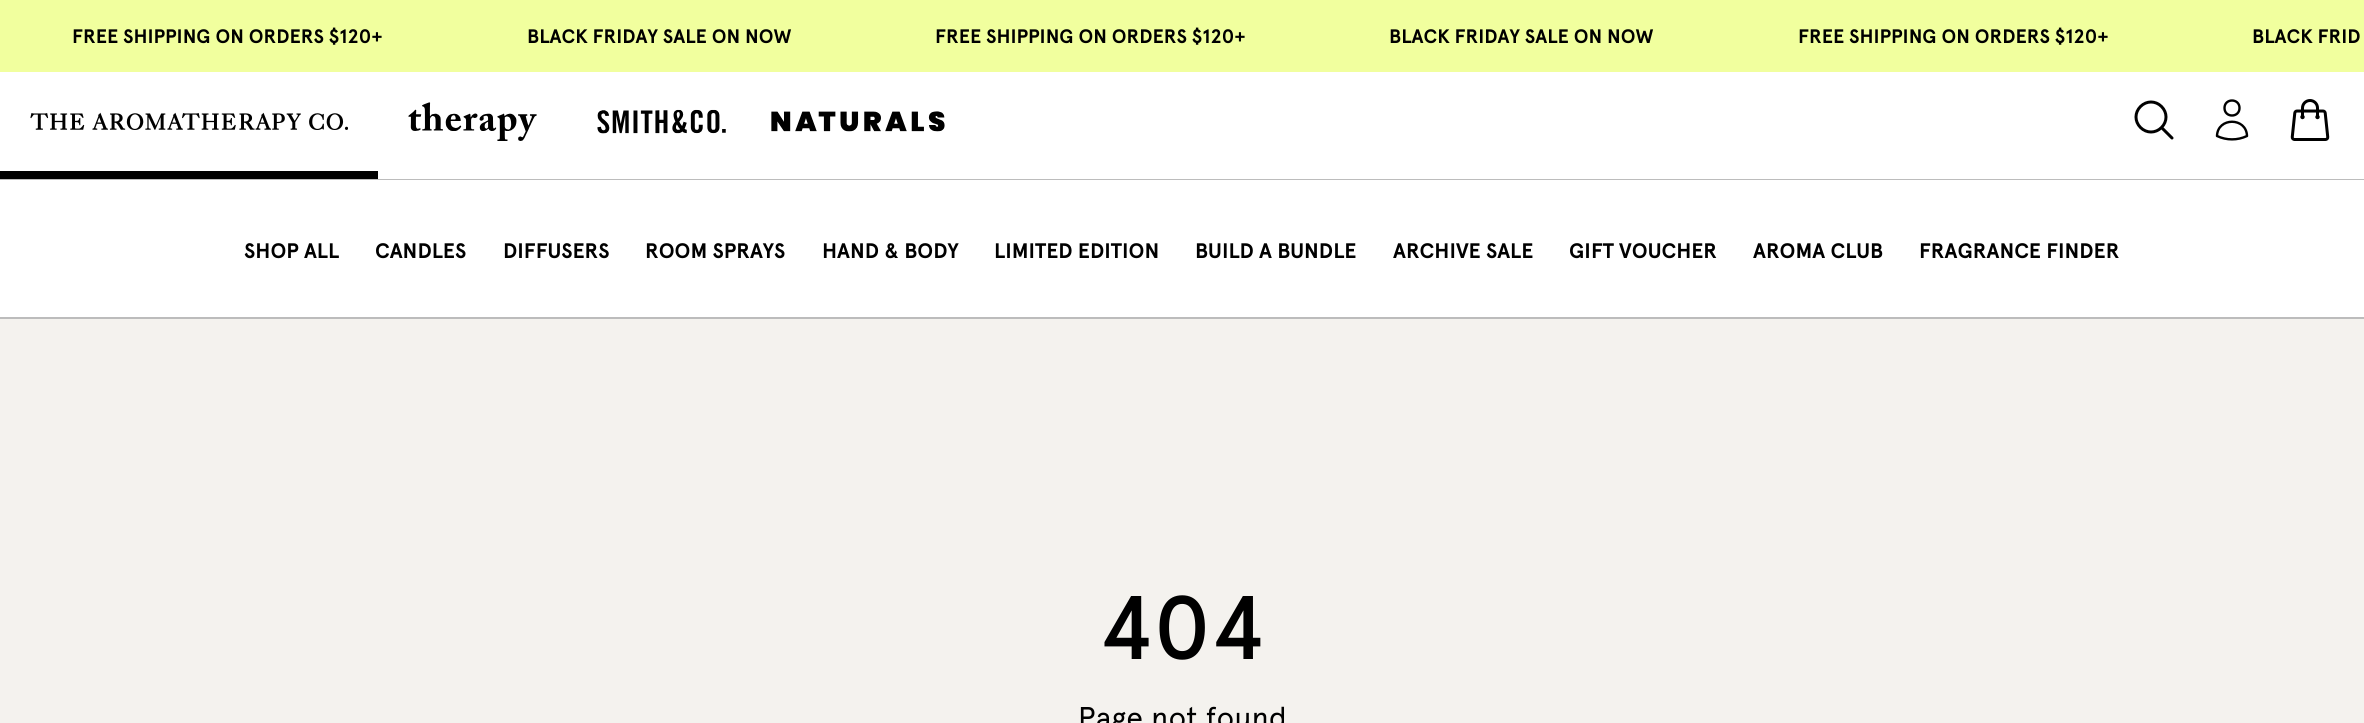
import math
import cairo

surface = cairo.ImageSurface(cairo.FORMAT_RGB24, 2364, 723)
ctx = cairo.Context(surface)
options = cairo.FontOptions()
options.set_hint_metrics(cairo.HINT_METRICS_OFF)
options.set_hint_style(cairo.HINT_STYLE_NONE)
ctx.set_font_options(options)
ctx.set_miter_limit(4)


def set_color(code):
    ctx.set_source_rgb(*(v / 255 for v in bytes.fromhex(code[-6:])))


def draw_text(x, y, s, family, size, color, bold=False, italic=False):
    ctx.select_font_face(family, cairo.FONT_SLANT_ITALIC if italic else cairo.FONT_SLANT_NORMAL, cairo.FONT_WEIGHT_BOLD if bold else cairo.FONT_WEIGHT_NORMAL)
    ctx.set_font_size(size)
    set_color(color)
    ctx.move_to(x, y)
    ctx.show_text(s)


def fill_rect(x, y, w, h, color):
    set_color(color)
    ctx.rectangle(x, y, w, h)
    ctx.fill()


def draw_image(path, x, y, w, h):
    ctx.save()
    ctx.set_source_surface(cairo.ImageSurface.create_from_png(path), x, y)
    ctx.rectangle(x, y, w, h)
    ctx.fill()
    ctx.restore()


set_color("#f4f2ee")
ctx.paint()
fill_rect(0, 0, 2364, 72, "#f1ff9e")
draw_text(72, 43, "FREE SHIPPING ON ORDERS $120+", "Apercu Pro", 19.5, "#000000", bold=True)
draw_text(527, 43, "BLACK FRIDAY SALE ON NOW", "Apercu Pro", 19.5, "#000000", bold=True)
draw_text(935, 43, "FREE SHIPPING ON ORDERS $120+", "Apercu Pro", 19.5, "#000000", bold=True)
draw_text(1389, 43, "BLACK FRIDAY SALE ON NOW", "Apercu Pro", 19.5, "#000000", bold=True)
draw_text(1798, 43, "FREE SHIPPING ON ORDERS $120+", "Apercu Pro", 19.5, "#000000", bold=True)
draw_text(2252, 43, "BLACK FRID", "Apercu Pro", 19.5, "#000000", bold=True)
fill_rect(0, 72, 2364, 107, "#ffffff")
fill_rect(0, 317, 2364, 2, "#bcbcbc")
fill_rect(0, 179, 2364, 1, "#bcbcbc")
fill_rect(0, 171, 378, 8, "#000000")
draw_image("assets/img1.png", 30, 112, 318, 18)
draw_image("assets/img2.png", 408, 102, 129, 39)
draw_image("assets/img3.png", 597, 109, 129, 25)
draw_image("assets/img4.png", 771, 111, 174, 21)
ctx.new_path()
ctx.move_to(2172, 138)
ctx.line_to(2161.5, 127.5)
ctx.move_to(2161.5, 127.5)
ctx.curve_to(2167.5, 121.5, 2167.5, 112.5, 2161.5, 106.5)
ctx.curve_to(2155.5, 100.5, 2146.5, 100.5, 2140.5, 106.5)
ctx.curve_to(2134.5, 112.5, 2134.5, 121.5, 2140.5, 127.5)
ctx.curve_to(2146.5, 133.5, 2155.5, 133.5, 2161.5, 127.5)
ctx.close_path()
ctx.set_line_width(3)
ctx.set_line_cap(cairo.LINE_CAP_ROUND)
ctx.set_line_join(cairo.LINE_JOIN_ROUND)
ctx.stroke()
ctx.new_path()
ctx.move_to(2239.5, 108)
ctx.curve_to(2239.5, 118, 2224.5, 118, 2224.5, 108)
ctx.curve_to(2224.5, 98, 2239.5, 98, 2239.5, 108)
ctx.close_path()
ctx.move_to(2217, 136)
ctx.curve_to(2217.5, 117, 2246.5, 117, 2247, 136)
ctx.curve_to(2237.5, 140.5, 2226.5, 140.5, 2217, 136)
ctx.close_path()
ctx.set_line_width(2.4)
ctx.stroke()
draw_image("assets/img5.png", 2290, 99, 40, 42)
fill_rect(0, 180, 2364, 137, "#ffffff")
draw_text(244, 258, "SHOP ALL", "Apercu Pro", 21, "#000000", bold=True)
draw_text(375, 258, "CANDLES", "Apercu Pro", 21, "#000000", bold=True)
draw_text(503, 258, "DIFFUSERS", "Apercu Pro", 21, "#000000", bold=True)
draw_text(645, 258, "ROOM SPRAYS", "Apercu Pro", 21, "#000000", bold=True)
draw_text(822, 258, "HAND & BODY", "Apercu Pro", 21, "#000000", bold=True)
draw_text(994, 258, "LIMITED EDITION", "Apercu Pro", 21, "#000000", bold=True)
draw_text(1195, 258, "BUILD A BUNDLE", "Apercu Pro", 21, "#000000", bold=True)
draw_text(1393, 258, "ARCHIVE SALE", "Apercu Pro", 21, "#000000", bold=True)
draw_text(1569, 258, "GIFT VOUCHER", "Apercu Pro", 21, "#000000", bold=True)
draw_text(1753, 258, "AROMA CLUB", "Apercu Pro", 21, "#000000", bold=True)
draw_text(1919, 258, "FRAGRANCE FINDER", "Apercu Pro", 21, "#000000", bold=True)
draw_text(1099, 659, "404", "Apercu Pro Medium", 90, "#000000")
draw_text(1078, 728, "Page not found", "Apercu Pro", 30, "#000000")
surface.write_to_png("output.png")
